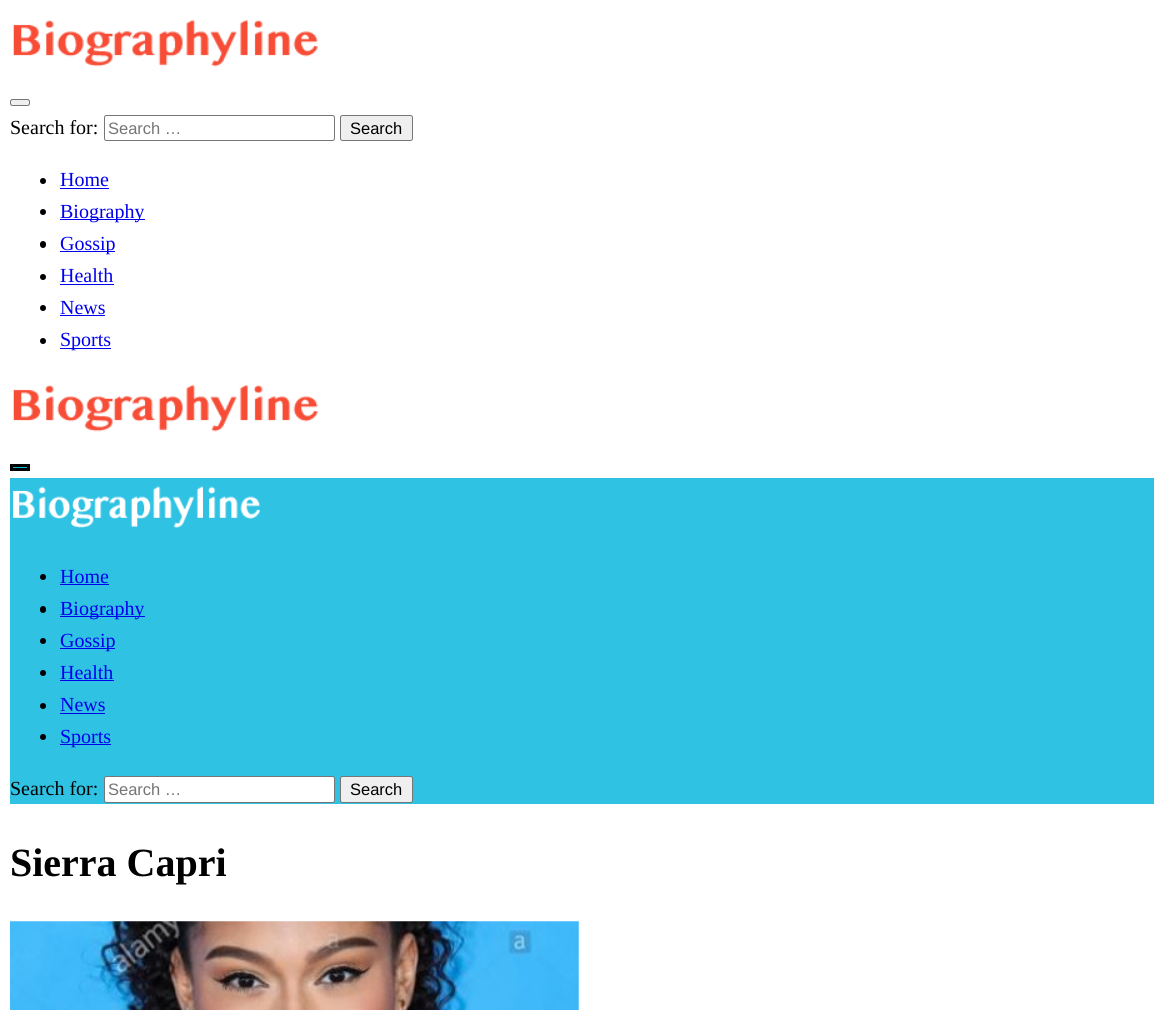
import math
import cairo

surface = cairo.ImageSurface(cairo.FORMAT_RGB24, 1163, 1010)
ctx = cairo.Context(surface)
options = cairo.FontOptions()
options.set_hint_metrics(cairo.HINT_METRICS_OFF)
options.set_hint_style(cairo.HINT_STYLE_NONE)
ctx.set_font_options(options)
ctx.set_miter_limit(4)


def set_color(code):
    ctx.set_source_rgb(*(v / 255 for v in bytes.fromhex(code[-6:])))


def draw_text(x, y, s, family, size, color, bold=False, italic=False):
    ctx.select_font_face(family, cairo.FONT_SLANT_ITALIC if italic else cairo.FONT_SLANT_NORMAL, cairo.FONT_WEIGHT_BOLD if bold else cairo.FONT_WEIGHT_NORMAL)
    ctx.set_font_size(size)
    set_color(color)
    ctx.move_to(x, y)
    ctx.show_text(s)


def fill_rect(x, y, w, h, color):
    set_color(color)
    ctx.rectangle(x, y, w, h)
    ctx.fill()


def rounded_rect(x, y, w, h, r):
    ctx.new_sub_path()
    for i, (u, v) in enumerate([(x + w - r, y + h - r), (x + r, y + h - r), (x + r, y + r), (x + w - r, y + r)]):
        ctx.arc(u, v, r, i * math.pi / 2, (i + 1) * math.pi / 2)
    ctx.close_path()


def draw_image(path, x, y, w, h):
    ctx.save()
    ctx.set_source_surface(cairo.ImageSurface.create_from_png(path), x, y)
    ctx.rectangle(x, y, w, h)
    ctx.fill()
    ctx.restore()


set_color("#ffffff")
ctx.paint()
draw_image("assets/img1.png", 13, 19, 305, 48)
set_color("#efefef")
rounded_rect(10.5, 99.5, 19, 6, 2)
ctx.fill_preserve()
set_color("#767676")
ctx.set_line_width(1)
ctx.stroke()
draw_text(10, 134, "Search for:", "Liberation Serif", 20, "#000000")
rounded_rect(104.5, 115.5, 230, 25, 2)
set_color("#767676")
ctx.stroke()
draw_text(108, 134, "Search …", "Liberation Sans", 16.5, "#757575")
set_color("#efefef")
rounded_rect(340.5, 115.5, 72, 25, 2)
ctx.fill_preserve()
set_color("#767676")
ctx.stroke()
draw_text(350, 134, "Search", "Liberation Sans", 16.5, "#000000")
ctx.new_path()
ctx.arc(43, 181, 3, 0, 2 * math.pi)
ctx.fill()
draw_text(60, 186, "Home", "Liberation Serif", 20, "#0000ee")
fill_rect(60, 188, 49, 1, "#0000ee")
set_color("#000000")
ctx.new_path()
ctx.arc(43, 212, 3, 0, 2 * math.pi)
ctx.fill()
fill_rect(60, 219, 85, 1, "#0000ee")
draw_text(60, 218, "Biography", "Liberation Serif", 20, "#0000ee")
set_color("#000000")
rounded_rect(40, 241, 6, 7, 3)
ctx.fill()
fill_rect(60, 251, 55, 1, "#0000ee")
draw_text(60, 250, "Gossip", "Liberation Serif", 20, "#0000ee")
set_color("#000000")
ctx.new_path()
ctx.arc(43, 277, 3, 0, 2 * math.pi)
ctx.fill()
draw_text(60, 282, "Health", "Liberation Serif", 20, "#0000ee")
fill_rect(60, 284, 54, 1, "#0000ee")
set_color("#000000")
ctx.new_path()
ctx.arc(43, 308, 3, 0, 2 * math.pi)
ctx.fill()
draw_text(60, 314, "News", "Liberation Serif", 20, "#0000ee")
fill_rect(60, 315, 45, 1, "#0000ee")
set_color("#000000")
ctx.new_path()
ctx.arc(43, 341, 3, 0, 2 * math.pi)
ctx.fill()
fill_rect(60, 348, 51, 1, "#0000ee")
draw_text(60, 346, "Sports", "Liberation Serif", 20, "#0000ee")
draw_image("assets/img1.png", 13, 384, 305, 48)
set_color("#00bcd4")
ctx.rectangle(11.5, 465.5, 17, 4)
ctx.fill_preserve()
set_color("#000000")
ctx.set_line_width(3)
ctx.stroke()
fill_rect(10, 478, 1144, 326, "#2fc2e3")
draw_image("assets/img2.png", 13, 486, 247, 42)
set_color("#000000")
ctx.arc(43, 577, 3, 0, 2 * math.pi)
ctx.fill()
draw_text(60, 583, "Home", "Liberation Serif", 20, "#0000ee")
fill_rect(60, 584, 49, 1, "#0000ee")
set_color("#000000")
rounded_rect(40, 606, 6, 7, 3)
ctx.fill()
fill_rect(60, 616, 85, 1, "#0000ee")
draw_text(60, 615, "Biography", "Liberation Serif", 20, "#0000ee")
set_color("#000000")
ctx.new_path()
ctx.arc(43, 641, 3, 0, 2 * math.pi)
ctx.fill()
fill_rect(60, 648, 55, 1, "#0000ee")
draw_text(60, 647, "Gossip", "Liberation Serif", 20, "#0000ee")
set_color("#000000")
ctx.new_path()
ctx.arc(43, 673, 3, 0, 2 * math.pi)
ctx.fill()
draw_text(60, 679, "Health", "Liberation Serif", 20, "#0000ee")
fill_rect(60, 680, 54, 1, "#0000ee")
set_color("#000000")
ctx.new_path()
ctx.arc(43, 706, 3, 0, 2 * math.pi)
ctx.fill()
draw_text(60, 711, "News", "Liberation Serif", 20, "#0000ee")
fill_rect(60, 713, 45, 1, "#0000ee")
set_color("#000000")
ctx.new_path()
ctx.arc(43, 737, 3, 0, 2 * math.pi)
ctx.fill()
fill_rect(60, 744, 51, 1, "#0000ee")
draw_text(60, 743, "Sports", "Liberation Serif", 20, "#0000ee")
draw_text(10, 795, "Search for:", "Liberation Serif", 20, "#000000")
set_color("#ffffff")
rounded_rect(104.5, 776.5, 230, 26, 2)
ctx.fill_preserve()
set_color("#767676")
ctx.set_line_width(1)
ctx.stroke()
draw_text(108, 795, "Search …", "Liberation Sans", 16.5, "#757575")
set_color("#efefef")
rounded_rect(340.5, 776.5, 72, 26, 2)
ctx.fill_preserve()
set_color("#767676")
ctx.stroke()
draw_text(350, 795, "Search", "Liberation Sans", 16.5, "#000000")
draw_text(10, 876, "Sierra Capri", "Liberation Serif", 40, "#000000", bold=True)
draw_image("assets/img3.png", 10, 921, 569, 89)
surface.write_to_png("output.png")
